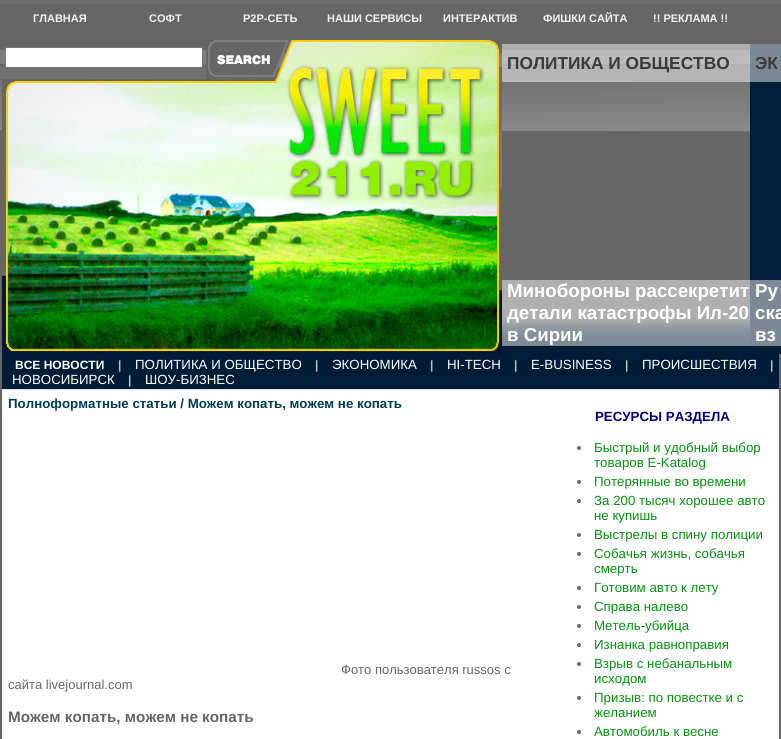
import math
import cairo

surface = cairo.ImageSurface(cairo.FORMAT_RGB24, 781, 739)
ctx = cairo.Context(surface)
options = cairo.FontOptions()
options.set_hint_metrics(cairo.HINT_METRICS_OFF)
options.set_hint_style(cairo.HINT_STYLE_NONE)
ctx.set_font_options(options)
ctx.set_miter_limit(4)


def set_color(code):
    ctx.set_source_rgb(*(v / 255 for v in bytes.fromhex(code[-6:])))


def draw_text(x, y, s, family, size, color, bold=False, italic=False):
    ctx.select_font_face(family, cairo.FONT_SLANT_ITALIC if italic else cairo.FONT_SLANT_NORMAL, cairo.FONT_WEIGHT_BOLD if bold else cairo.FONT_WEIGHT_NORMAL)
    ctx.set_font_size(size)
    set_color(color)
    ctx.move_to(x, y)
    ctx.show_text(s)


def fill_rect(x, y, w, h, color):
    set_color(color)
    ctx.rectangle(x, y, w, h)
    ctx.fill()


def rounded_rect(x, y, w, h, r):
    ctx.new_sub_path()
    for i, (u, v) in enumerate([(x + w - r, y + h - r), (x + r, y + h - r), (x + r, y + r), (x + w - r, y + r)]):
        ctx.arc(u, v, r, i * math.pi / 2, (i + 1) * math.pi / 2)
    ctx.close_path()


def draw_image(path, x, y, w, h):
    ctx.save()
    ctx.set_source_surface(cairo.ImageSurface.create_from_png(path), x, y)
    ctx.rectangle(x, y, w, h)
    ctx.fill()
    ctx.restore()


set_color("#666666")
ctx.paint()
draw_image("assets/img1.png", 0, 0, 781, 132)
draw_text(33, 22, "ГЛАВНАЯ", "Liberation Sans", 11, "#f0f0f0", bold=True)
draw_text(149, 22, "СОФТ", "Liberation Sans", 11, "#f0f0f0", bold=True)
draw_text(243, 22, "P2P-СЕТЬ", "Liberation Sans", 11, "#f0f0f0", bold=True)
draw_text(327, 22, "НАШИ СЕРВИСЫ", "Liberation Sans", 11, "#f0f0f0", bold=True)
draw_text(443, 22, "ИНТЕРАКТИВ", "Liberation Sans", 11, "#f0f0f0", bold=True)
draw_text(543, 22, "ФИШКИ САЙТА", "Liberation Sans", 11, "#f0f0f0", bold=True)
draw_text(653, 22, "!! РЕКЛАМА !!", "Liberation Sans", 11, "#f0f0f0", bold=True)
set_color("#ffffff")
rounded_rect(5.5, 47.5, 197, 20, 1.5)
ctx.fill_preserve()
set_color("#767676")
ctx.set_line_width(1)
ctx.stroke()
draw_image("assets/img2.png", 206, 40, 67, 39)
draw_image("assets/img3.png", 273, 36, 229, 43)
draw_image("assets/img4.png", 2, 79, 500, 275)
draw_image("assets/img5.png", 502, 317, 248, 37)
ctx.set_source_rgba(1, 1, 1, 0.48)
ctx.rectangle(502, 44, 248, 38)
ctx.fill()
draw_text(507, 69, "ПОЛИТИКА И ОБЩЕСТВО", "Liberation Sans", 17.3, "#3b3b3b", bold=True)
ctx.set_source_rgba(1, 1, 1, 0.48)
ctx.rectangle(502, 280, 248, 66)
ctx.fill()
draw_text(507, 297, "Минобороны рассекретит", "Liberation Sans", 18.7, "#ffffff", bold=True)
draw_text(507, 319, "детали катастрофы Ил-20", "Liberation Sans", 18.7, "#ffffff", bold=True)
draw_text(507, 341, "в Сирии", "Liberation Sans", 18.7, "#ffffff", bold=True)
fill_rect(750, 82, 31, 272, "#011c36")
fill_rect(750, 44, 31, 38, "#7b8996")
draw_text(755, 69, "ЭК", "Liberation Sans", 17.3, "#3b3b3b", bold=True)
fill_rect(750, 280, 31, 66, "#7b8996")
draw_text(755, 297, "Ру", "Liberation Sans", 18.7, "#ffffff", bold=True)
draw_text(755, 319, "ска", "Liberation Sans", 18.7, "#ffffff", bold=True)
draw_text(755, 341, "вз", "Liberation Sans", 18.7, "#ffffff", bold=True)
fill_rect(2, 354, 777, 35, "#011c36")
draw_text(15, 369, "ВСЕ НОВОСТИ", "Liberation Sans", 12, "#ffffff", bold=True)
draw_text(118, 369, "|", "Liberation Sans", 12, "#c0c0c0", bold=True)
draw_text(135, 369, "ПОЛИТИКА И ОБЩЕСТВО", "Liberation Sans", 13.3, "#ffffff")
draw_text(315, 369, "|", "Liberation Sans", 12, "#c0c0c0", bold=True)
draw_text(332, 369, "ЭКОНОМИКА", "Liberation Sans", 13.3, "#ffffff")
draw_text(430, 369, "|", "Liberation Sans", 12, "#c0c0c0", bold=True)
draw_text(447, 369, "HI-TECH", "Liberation Sans", 13.3, "#ffffff")
draw_text(514, 369, "|", "Liberation Sans", 12, "#c0c0c0", bold=True)
draw_text(531, 369, "E-BUSINESS", "Liberation Sans", 13.3, "#ffffff")
draw_text(625, 369, "|", "Liberation Sans", 12, "#c0c0c0", bold=True)
draw_text(642, 369, "ПРОИСШЕСТВИЯ", "Liberation Sans", 13.3, "#ffffff")
draw_text(770, 369, "|", "Liberation Sans", 12, "#c0c0c0", bold=True)
draw_text(12, 384, "НОВОСИБИРСК", "Liberation Sans", 13.3, "#ffffff")
draw_text(128, 384, "|", "Liberation Sans", 12, "#c0c0c0", bold=True)
draw_text(145, 384, "ШОУ-БИЗНЕС", "Liberation Sans", 13.3, "#ffffff")
fill_rect(2, 389, 777, 1, "#e0e0e0")
fill_rect(2, 390, 777, 349, "#ffffff")
draw_text(8, 408, "Полноформатные статьи / Можем копать, можем не копать", "Liberation Sans", 13.3, "#013d50", bold=True)
draw_text(341, 674, "Фото пользователя russos с", "Liberation Sans", 13, "#666666")
draw_text(8, 689, "сайта livejournal.com", "Liberation Sans", 13, "#666666")
draw_text(8, 722, "Можем копать, можем не копать", "Liberation Sans", 15.25, "#666666", bold=True)
draw_text(595, 421, "РЕСУРСЫ РАЗДЕЛА", "Liberation Sans", 13.3, "#000080", bold=True)
set_color("#666666")
ctx.new_path()
ctx.arc(579, 448, 2, 0, 2 * math.pi)
ctx.fill()
draw_text(594, 452, "Быстрый и удобный выбор", "Liberation Sans", 13.3, "#04930f")
draw_text(594, 467, "товаров E-Katalog", "Liberation Sans", 13.3, "#04930f")
set_color("#666666")
ctx.new_path()
ctx.arc(579, 482, 2, 0, 2 * math.pi)
ctx.fill()
draw_text(594, 486, "Потерянные во времени", "Liberation Sans", 13.3, "#04930f")
set_color("#666666")
ctx.new_path()
ctx.arc(579, 501, 2, 0, 2 * math.pi)
ctx.fill()
draw_text(594, 505, "За 200 тысяч хорошее авто", "Liberation Sans", 13.3, "#04930f")
draw_text(594, 520, "не купишь", "Liberation Sans", 13.3, "#04930f")
set_color("#666666")
ctx.new_path()
ctx.arc(579, 535, 2, 0, 2 * math.pi)
ctx.fill()
draw_text(594, 539, "Выстрелы в спину полиции", "Liberation Sans", 13.3, "#04930f")
set_color("#666666")
ctx.new_path()
ctx.arc(579, 554, 2, 0, 2 * math.pi)
ctx.fill()
draw_text(594, 558, "Собачья жизнь, собачья", "Liberation Sans", 13.3, "#04930f")
draw_text(594, 573, "смерть", "Liberation Sans", 13.3, "#04930f")
set_color("#666666")
ctx.new_path()
ctx.arc(579, 588, 2, 0, 2 * math.pi)
ctx.fill()
draw_text(594, 592, "Готовим авто к лету", "Liberation Sans", 13.3, "#04930f")
set_color("#666666")
ctx.new_path()
ctx.arc(579, 607, 2, 0, 2 * math.pi)
ctx.fill()
draw_text(594, 611, "Справа налево", "Liberation Sans", 13.3, "#04930f")
set_color("#666666")
ctx.new_path()
ctx.arc(579, 626, 2, 0, 2 * math.pi)
ctx.fill()
draw_text(594, 630, "Метель-убийца", "Liberation Sans", 13.3, "#04930f")
set_color("#666666")
ctx.new_path()
ctx.arc(579, 645, 2, 0, 2 * math.pi)
ctx.fill()
draw_text(594, 649, "Изнанка равноправия", "Liberation Sans", 13.3, "#04930f")
set_color("#666666")
ctx.new_path()
ctx.arc(579, 664, 2, 0, 2 * math.pi)
ctx.fill()
draw_text(594, 668, "Взрыв с небанальным", "Liberation Sans", 13.3, "#04930f")
draw_text(594, 683, "исходом", "Liberation Sans", 13.3, "#04930f")
set_color("#666666")
ctx.new_path()
ctx.arc(579, 698, 2, 0, 2 * math.pi)
ctx.fill()
draw_text(594, 702, "Призыв: по повестке и с", "Liberation Sans", 13.3, "#04930f")
draw_text(594, 717, "желанием", "Liberation Sans", 13.3, "#04930f")
set_color("#666666")
ctx.new_path()
ctx.arc(579, 732, 2, 0, 2 * math.pi)
ctx.fill()
draw_text(594, 736, "Автомобиль к весне", "Liberation Sans", 13.3, "#04930f")
surface.write_to_png("output.png")
